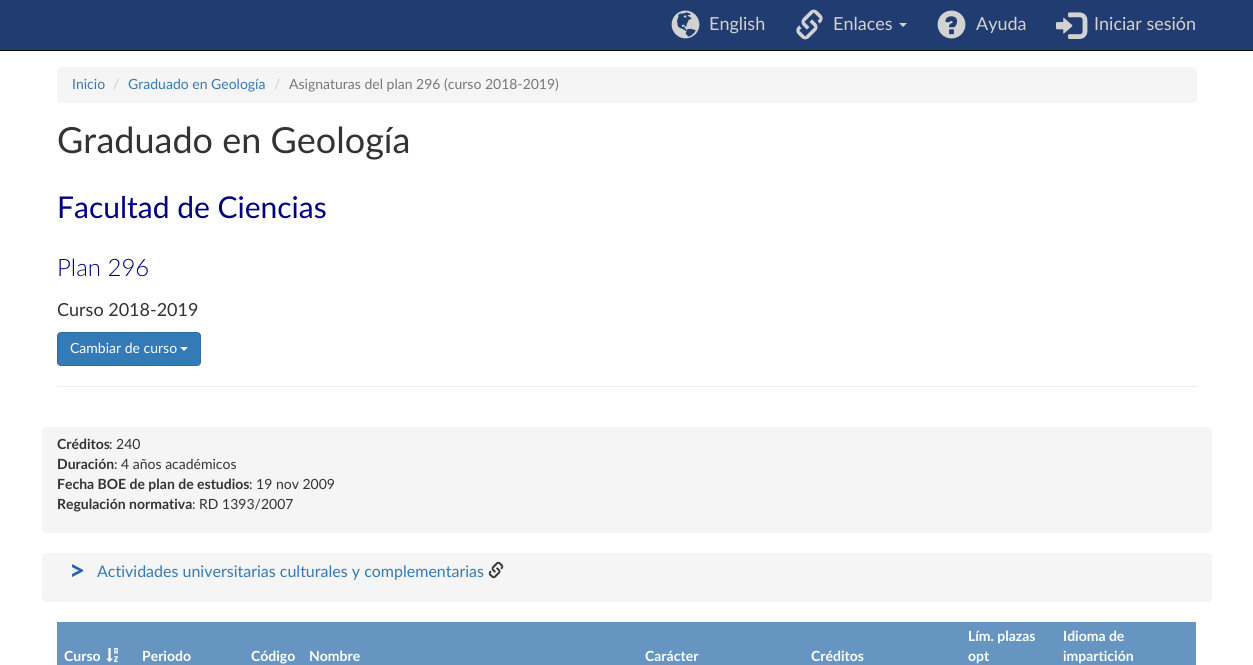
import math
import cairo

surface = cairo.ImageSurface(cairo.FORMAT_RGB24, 1253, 665)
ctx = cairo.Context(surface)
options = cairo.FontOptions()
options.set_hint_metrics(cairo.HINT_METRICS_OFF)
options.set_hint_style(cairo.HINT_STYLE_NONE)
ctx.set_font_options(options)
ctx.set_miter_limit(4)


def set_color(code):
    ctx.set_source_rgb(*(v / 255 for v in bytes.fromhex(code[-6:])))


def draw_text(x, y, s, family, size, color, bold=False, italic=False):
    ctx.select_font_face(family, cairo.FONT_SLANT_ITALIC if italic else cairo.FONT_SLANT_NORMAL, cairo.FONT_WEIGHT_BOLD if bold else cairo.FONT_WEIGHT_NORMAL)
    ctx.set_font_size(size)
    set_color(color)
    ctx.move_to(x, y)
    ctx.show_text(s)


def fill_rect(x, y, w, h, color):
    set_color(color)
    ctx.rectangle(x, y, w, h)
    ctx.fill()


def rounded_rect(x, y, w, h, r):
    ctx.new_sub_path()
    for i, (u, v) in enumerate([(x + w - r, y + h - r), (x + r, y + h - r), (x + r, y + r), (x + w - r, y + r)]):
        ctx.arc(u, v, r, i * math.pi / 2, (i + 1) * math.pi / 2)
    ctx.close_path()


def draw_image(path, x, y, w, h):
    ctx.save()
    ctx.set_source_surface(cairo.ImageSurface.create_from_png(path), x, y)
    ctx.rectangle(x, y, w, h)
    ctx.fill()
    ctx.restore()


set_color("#ffffff")
ctx.paint()
fill_rect(0, 0, 1253, 50, "#213c71")
fill_rect(0, 50, 1253, 1, "#080808")
draw_image("assets/img1.png", 671, 10, 29, 29)
draw_text(709, 30, "English", "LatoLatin", 18, "#d2d2d2")
draw_image("assets/img2.png", 796, 9, 27, 31)
draw_text(833, 30, "Enlaces", "LatoLatin", 18, "#d2d2d2")
ctx.new_path()
ctx.move_to(899, 23)
ctx.line_to(907, 23)
ctx.line_to(903, 27)
ctx.close_path()
ctx.fill()
draw_image("assets/img3.png", 937, 10, 29, 29)
draw_text(976, 30, "Ayuda", "LatoLatin", 18, "#d2d2d2")
draw_image("assets/img4.png", 1056, 12, 32, 27)
draw_text(1094, 30, "Iniciar sesión", "LatoLatin", 18, "#d2d2d2")
set_color("#f5f5f5")
rounded_rect(57, 67, 1140, 36, 4)
ctx.fill()
draw_text(72, 89, "Inicio", "LatoLatin", 14, "#337ab7")
draw_text(113, 89, "/", "LatoLatin", 14, "#cccccc")
draw_text(128, 89, "Graduado en Geología", "LatoLatin", 14, "#337ab7")
draw_text(274, 89, "/", "LatoLatin", 14, "#cccccc")
draw_text(289, 89, "Asignaturas del plan 296 (curso 2018-2019)", "LatoLatin", 14, "#777777")
draw_text(57, 153, "Graduado en Geología", "LatoLatin", 36, "#333333")
draw_text(57, 218, "Facultad de Ciencias", "LatoLatin", 30, "#000080")
draw_text(57, 276, "Plan 296", "LatoLatin Light", 24, "#000080")
draw_text(57, 316, "Curso 2018-2019", "LatoLatin", 18, "#333333")
set_color("#337ab7")
rounded_rect(57.5, 332.5, 143, 33, 3.5)
ctx.fill_preserve()
set_color("#2e6da4")
ctx.set_line_width(1)
ctx.stroke()
draw_text(70, 353, "Cambiar de curso", "LatoLatin", 14, "#ffffff")
ctx.new_path()
ctx.move_to(180, 347)
ctx.line_to(188, 347)
ctx.line_to(184, 351)
ctx.close_path()
ctx.fill()
fill_rect(57, 386, 1140, 1, "#eeeeee")
set_color("#f5f5f5")
rounded_rect(42, 427, 1170, 106, 4)
ctx.fill()
draw_text(57, 449, "Créditos", "LatoLatin", 14, "#333333", bold=True)
draw_text(109, 449, ": 240", "LatoLatin", 14, "#333333")
draw_text(57, 469, "Duración", "LatoLatin", 14, "#333333", bold=True)
draw_text(114, 469, ": 4 años académicos", "LatoLatin", 14, "#333333")
draw_text(57, 489, "Fecha BOE de plan de estudios", "LatoLatin", 14, "#333333", bold=True)
draw_text(249, 489, ": 19 nov 2009", "LatoLatin", 14, "#333333")
draw_text(57, 509, "Regulación normativa", "LatoLatin", 14, "#333333", bold=True)
draw_text(192, 509, ": RD 1393/2007", "LatoLatin", 14, "#333333")
set_color("#f5f5f5")
rounded_rect(42, 553, 1170, 49, 4)
ctx.fill()
draw_text(69, 580, ">", "LatoLatin", 28, "#2166a4", bold=True)
draw_text(97, 577, "Actividades universitarias culturales y complementarias", "LatoLatin", 16, "#337ab7")
draw_image("assets/img5.png", 488, 561, 16, 18)
fill_rect(57, 622, 1139, 43, "#6595c0")
draw_text(64, 661, "Curso", "LatoLatin", 14, "#ffffff", bold=True)
draw_image("assets/img6.png", 106, 648, 12, 14)
draw_text(142, 661, "Periodo", "LatoLatin", 14, "#ffffff", bold=True)
draw_text(251, 661, "Código", "LatoLatin", 14, "#ffffff", bold=True)
draw_text(309, 661, "Nombre", "LatoLatin", 14, "#ffffff", bold=True)
draw_text(645, 661, "Carácter", "LatoLatin", 14, "#ffffff", bold=True)
draw_text(811, 661, "Créditos", "LatoLatin", 14, "#ffffff", bold=True)
draw_text(968, 641, "Lím. plazas", "LatoLatin", 14, "#ffffff", bold=True)
draw_text(968, 661, "opt", "LatoLatin", 14, "#ffffff", bold=True)
draw_text(1063, 641, "Idioma de", "LatoLatin", 14, "#ffffff", bold=True)
draw_text(1063, 661, "impartición", "LatoLatin", 14, "#ffffff", bold=True)
surface.write_to_png("output.png")
